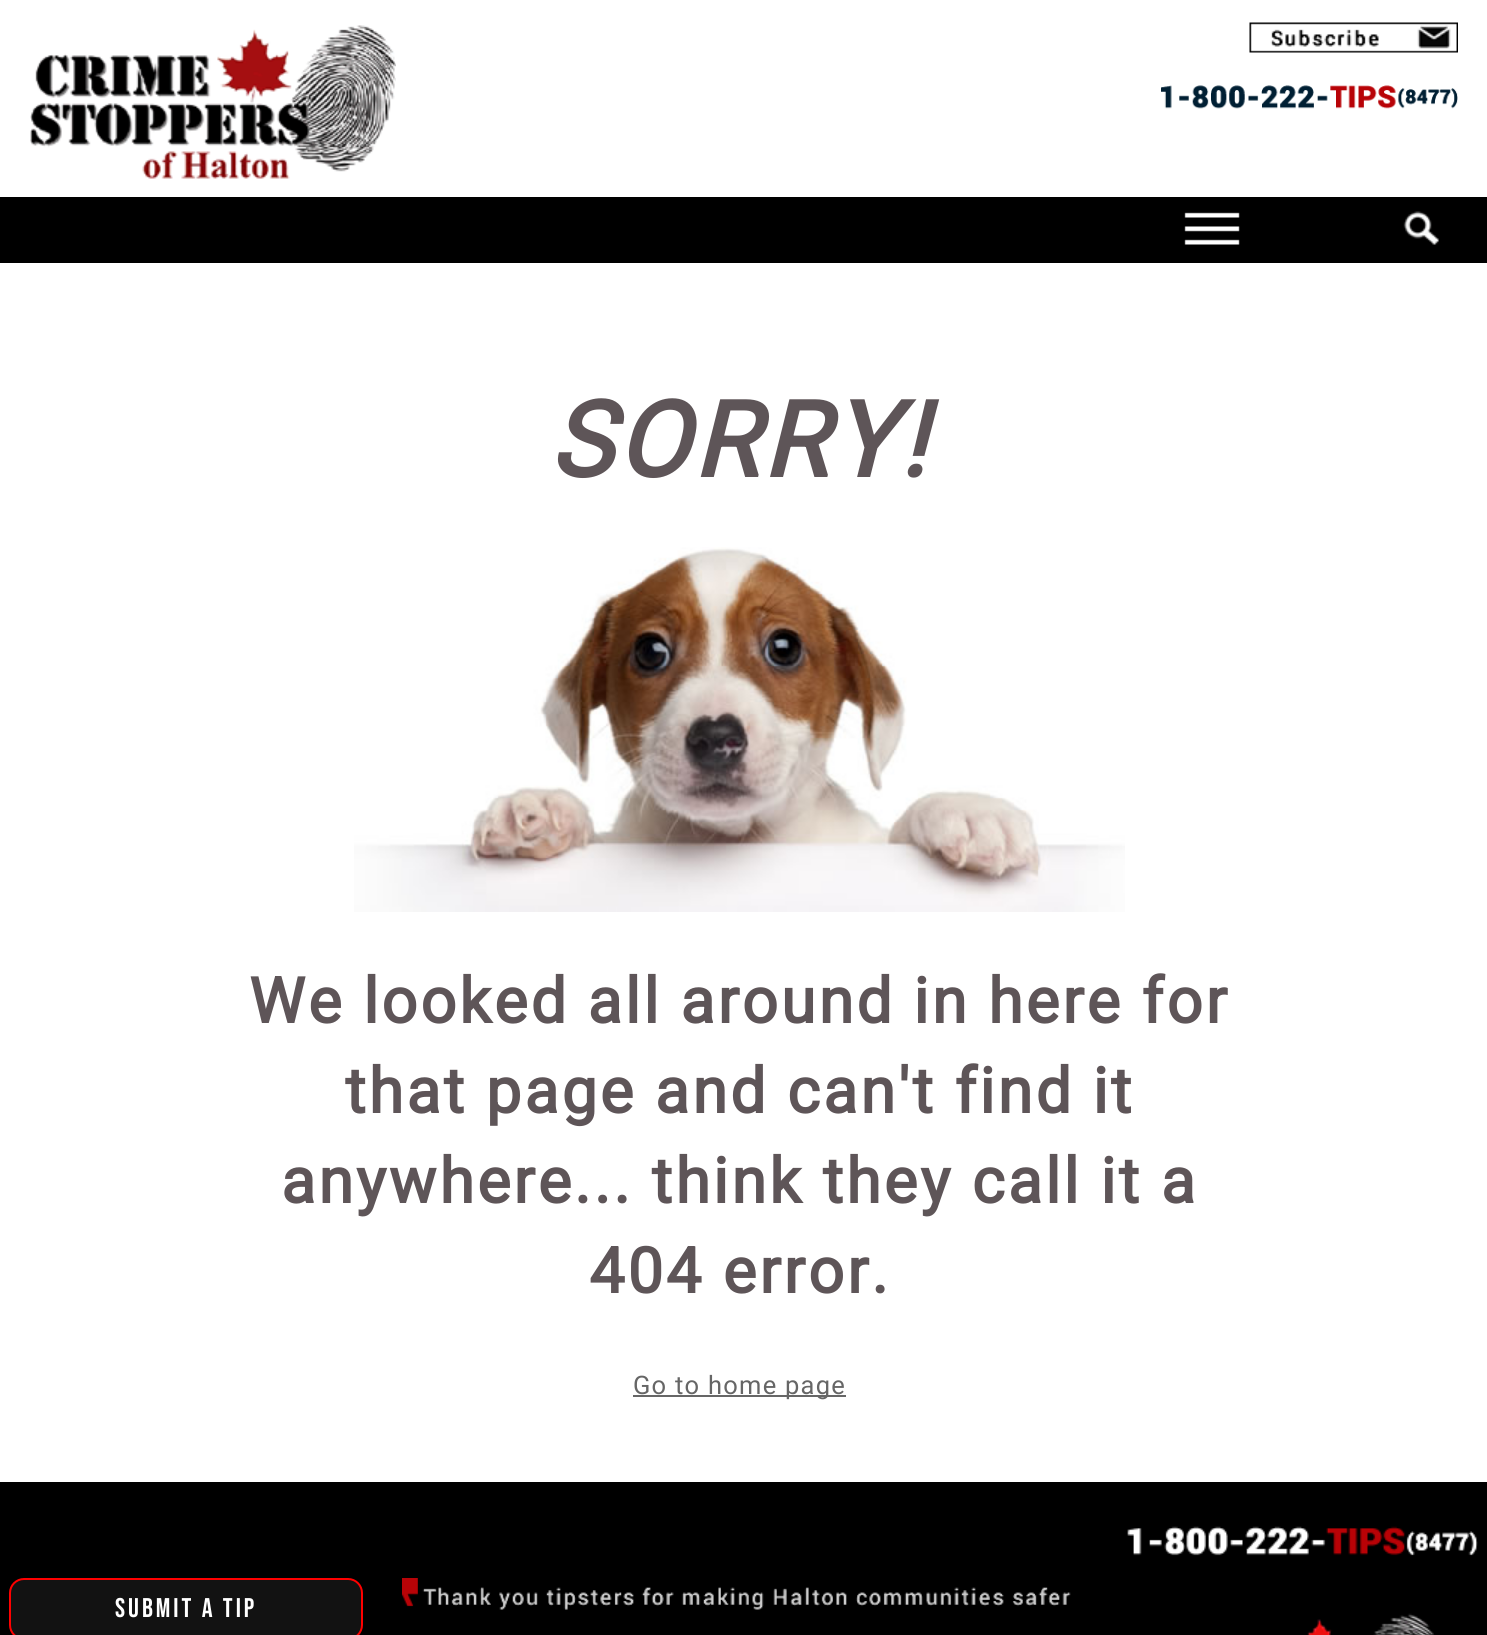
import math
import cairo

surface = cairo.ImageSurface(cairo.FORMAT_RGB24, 1487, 1635)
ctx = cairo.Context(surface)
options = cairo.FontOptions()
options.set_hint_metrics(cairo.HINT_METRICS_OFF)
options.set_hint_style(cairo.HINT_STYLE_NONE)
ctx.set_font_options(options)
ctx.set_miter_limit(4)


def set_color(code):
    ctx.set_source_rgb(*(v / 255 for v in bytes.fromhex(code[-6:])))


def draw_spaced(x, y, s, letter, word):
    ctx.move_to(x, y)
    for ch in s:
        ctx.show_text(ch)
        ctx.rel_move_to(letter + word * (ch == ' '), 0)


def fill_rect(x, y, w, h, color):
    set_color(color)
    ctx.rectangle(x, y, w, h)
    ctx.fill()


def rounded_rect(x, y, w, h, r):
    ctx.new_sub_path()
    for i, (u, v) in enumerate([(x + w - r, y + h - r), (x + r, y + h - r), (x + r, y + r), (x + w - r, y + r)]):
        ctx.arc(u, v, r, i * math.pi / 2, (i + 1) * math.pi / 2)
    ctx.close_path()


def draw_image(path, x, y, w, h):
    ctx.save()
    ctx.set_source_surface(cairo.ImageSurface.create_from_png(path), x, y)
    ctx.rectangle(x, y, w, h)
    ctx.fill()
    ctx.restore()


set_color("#ffffff")
ctx.paint()
draw_image("assets/img1.png", 30, 25, 366, 154)
draw_image("assets/img2.png", 1249, 22, 209, 31)
draw_image("assets/img3.png", 1161, 85, 297, 24)
fill_rect(0, 197, 1487, 66, "#000000")
draw_image("assets/img4.png", 1184, 212, 56, 33)
draw_image("assets/img5.png", 1403, 211, 36, 34)
ctx.select_font_face("Roboto", cairo.FONT_SLANT_ITALIC, cairo.FONT_WEIGHT_BOLD)
ctx.set_font_size(105)
set_color("#5e5558")
draw_spaced(549, 477, "SORRY!", 4.5, 0)
draw_image("assets/img6.png", 354, 547, 771, 365)
ctx.select_font_face("Roboto", cairo.FONT_SLANT_NORMAL, cairo.FONT_WEIGHT_BOLD)
ctx.set_font_size(63)
draw_spaced(249, 1023, "We looked all around in here for", 3, 0)
draw_spaced(345, 1113, "that page and can't find it", 3, 0)
draw_spaced(281, 1203, "anywhere... think they call it a", 3, 0)
draw_spaced(589, 1293, "404 error.", 3, 0)
fill_rect(633, 1395, 213, 2, "#666666")
ctx.select_font_face("Roboto")
ctx.set_font_size(25.5)
draw_spaced(633, 1394, "Go to home page", 1.25, 0)
fill_rect(0, 1482, 1487, 153, "#000000")
set_color("#121212")
rounded_rect(10, 1579, 352, 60, 14)
ctx.fill_preserve()
set_color("#ff0000")
ctx.stroke()
ctx.select_font_face("Bebas Neue")
ctx.set_font_size(27)
set_color("#ffffff")
draw_spaced(115, 1617, "SUBMIT A TIP", 3, 0)
draw_image("assets/img7.png", 402, 1578, 669, 32)
draw_image("assets/img8.png", 1127, 1526, 351, 109)
surface.write_to_png("output.png")
